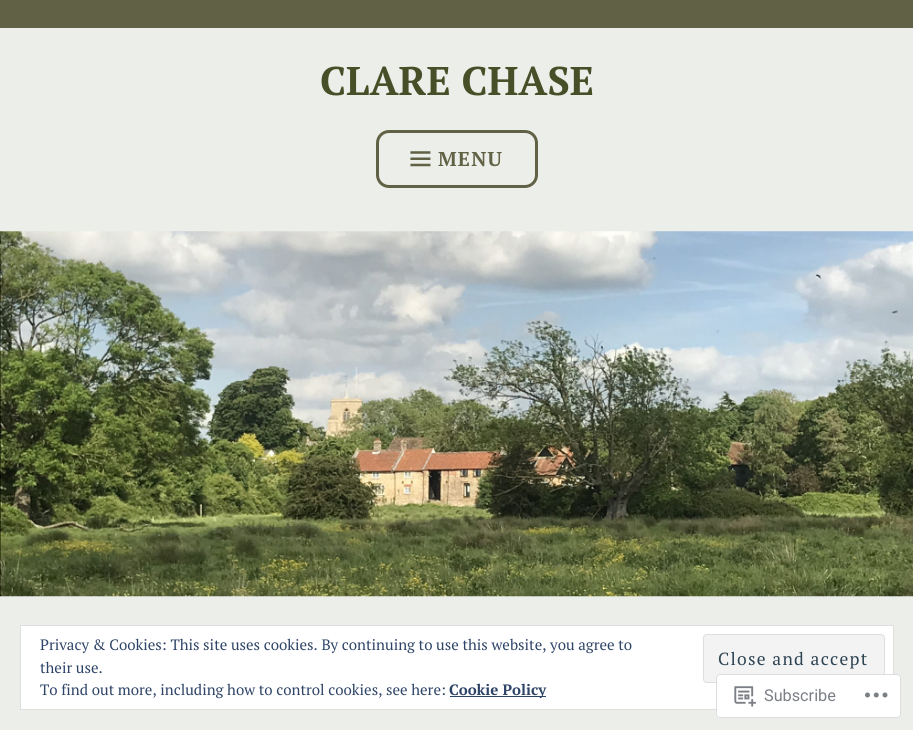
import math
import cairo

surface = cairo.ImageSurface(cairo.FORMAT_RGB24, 913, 730)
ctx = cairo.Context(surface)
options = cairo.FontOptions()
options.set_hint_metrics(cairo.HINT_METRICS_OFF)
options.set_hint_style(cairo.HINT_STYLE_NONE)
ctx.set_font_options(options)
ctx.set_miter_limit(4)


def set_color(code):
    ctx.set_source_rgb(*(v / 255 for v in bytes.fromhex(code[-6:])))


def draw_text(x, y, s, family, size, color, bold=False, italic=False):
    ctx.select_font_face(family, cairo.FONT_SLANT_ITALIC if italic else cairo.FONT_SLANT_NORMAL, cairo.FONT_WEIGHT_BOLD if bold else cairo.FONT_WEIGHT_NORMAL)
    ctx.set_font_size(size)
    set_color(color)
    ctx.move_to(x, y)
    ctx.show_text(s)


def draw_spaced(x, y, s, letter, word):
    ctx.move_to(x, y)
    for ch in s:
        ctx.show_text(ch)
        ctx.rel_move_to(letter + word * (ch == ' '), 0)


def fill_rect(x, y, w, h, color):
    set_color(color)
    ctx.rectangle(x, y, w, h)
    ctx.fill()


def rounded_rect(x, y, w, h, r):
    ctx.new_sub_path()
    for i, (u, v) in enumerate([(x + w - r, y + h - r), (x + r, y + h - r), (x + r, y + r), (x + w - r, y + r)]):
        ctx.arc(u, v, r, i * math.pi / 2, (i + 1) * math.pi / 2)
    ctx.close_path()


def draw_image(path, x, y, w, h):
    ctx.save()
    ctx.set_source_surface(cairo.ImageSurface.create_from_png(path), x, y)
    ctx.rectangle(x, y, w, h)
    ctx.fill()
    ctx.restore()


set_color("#eceee9")
ctx.paint()
fill_rect(0, 0, 913, 28, "#616145")
draw_text(320, 95, "CLARE CHASE", "PT Serif", 40, "#474f28", bold=True)
rounded_rect(377.5, 131.5, 159, 55, 11.5)
set_color("#616145")
ctx.set_line_width(3)
ctx.stroke()
draw_image("assets/img1.png", 410, 151, 21, 16)
ctx.set_font_size(20)
draw_spaced(438, 166, "MENU", 1.25, 0)
draw_image("assets/img2.png", 0, 231, 913, 366)
set_color("#ffffff")
ctx.rectangle(20.5, 625.5, 873, 84)
ctx.fill_preserve()
set_color("#dedede")
ctx.set_line_width(1)
ctx.stroke()
draw_text(40, 650, "Privacy & Cookies: This site uses cookies. By continuing to use this website, you agree to", "PT Serif", 15, "#2e4467")
draw_text(40, 673, "their use.", "PT Serif", 15, "#2e4467")
set_color("#f3f3f3")
rounded_rect(703.5, 634.5, 181, 48, 3.5)
ctx.fill_preserve()
set_color("#dedede")
ctx.stroke()
ctx.set_font_size(17.5)
set_color("#2e4453")
draw_spaced(718, 665, "Close and accept", 1.25, 0)
draw_text(40, 695, "To find out more, including how to control cookies, see here:", "PT Serif", 15, "#2e4467")
fill_rect(450, 696, 96, 1, "#2e4467")
draw_text(449, 695, "Cookie Policy", "PT Serif", 15, "#2e4467", bold=True)
ctx.set_source_rgba(1, 1, 1, 0.98)
rounded_rect(716, 674, 185, 44, 4)
ctx.fill()
rounded_rect(716.5, 674.5, 184, 43, 3.5)
ctx.set_source_rgba(0.863, 0.863, 0.871, 0.98)
ctx.stroke()
draw_image("assets/img3.png", 734, 686, 22, 21)
draw_text(764, 701, "Subscribe", "Roboto", 16.25, "#7b7f85")
draw_image("assets/img4.png", 865, 692, 23, 6)
surface.write_to_png("output.png")
